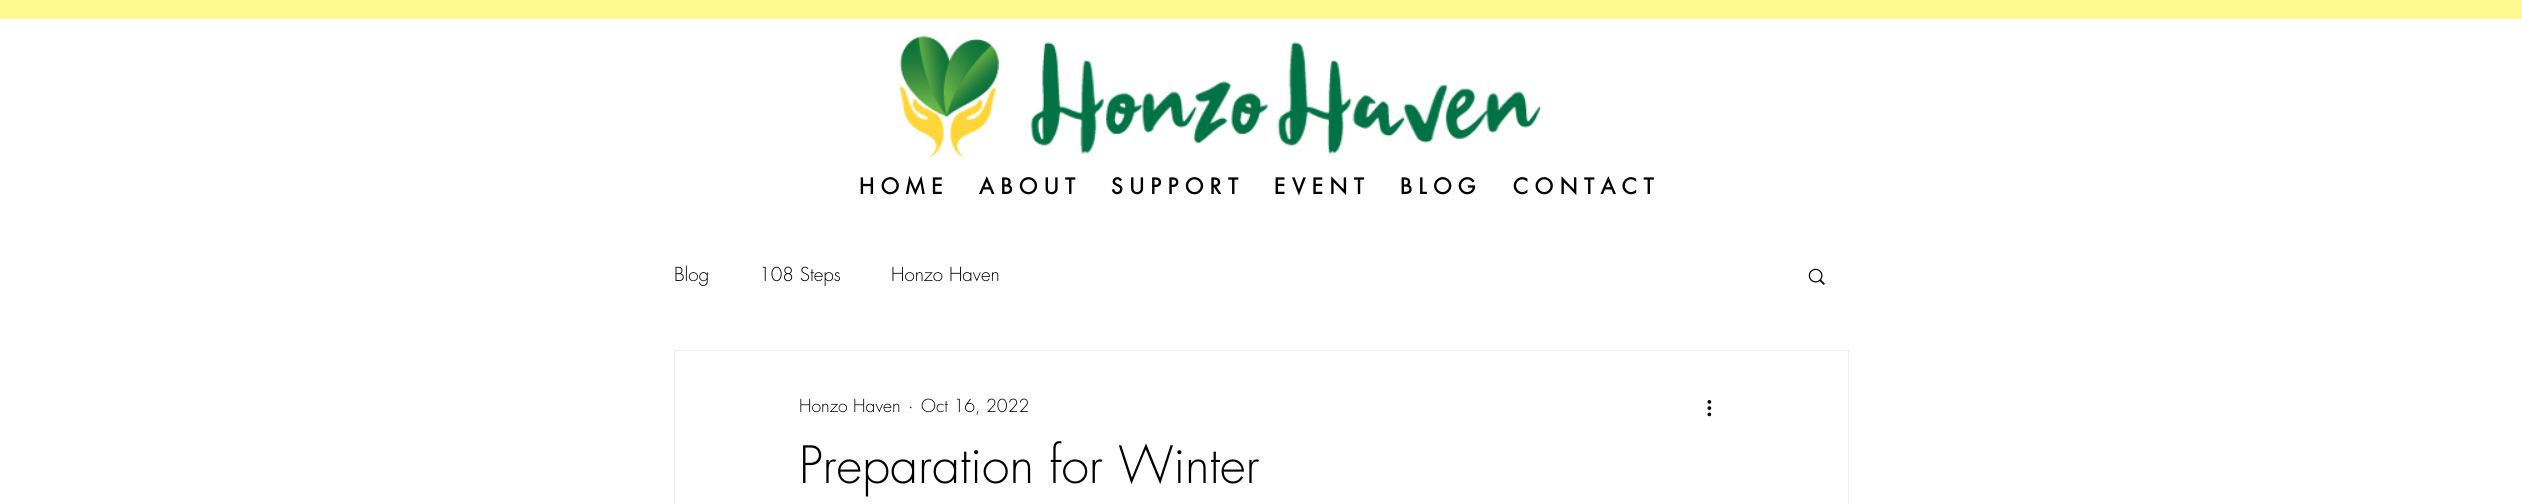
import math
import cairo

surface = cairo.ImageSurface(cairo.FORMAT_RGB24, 2522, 504)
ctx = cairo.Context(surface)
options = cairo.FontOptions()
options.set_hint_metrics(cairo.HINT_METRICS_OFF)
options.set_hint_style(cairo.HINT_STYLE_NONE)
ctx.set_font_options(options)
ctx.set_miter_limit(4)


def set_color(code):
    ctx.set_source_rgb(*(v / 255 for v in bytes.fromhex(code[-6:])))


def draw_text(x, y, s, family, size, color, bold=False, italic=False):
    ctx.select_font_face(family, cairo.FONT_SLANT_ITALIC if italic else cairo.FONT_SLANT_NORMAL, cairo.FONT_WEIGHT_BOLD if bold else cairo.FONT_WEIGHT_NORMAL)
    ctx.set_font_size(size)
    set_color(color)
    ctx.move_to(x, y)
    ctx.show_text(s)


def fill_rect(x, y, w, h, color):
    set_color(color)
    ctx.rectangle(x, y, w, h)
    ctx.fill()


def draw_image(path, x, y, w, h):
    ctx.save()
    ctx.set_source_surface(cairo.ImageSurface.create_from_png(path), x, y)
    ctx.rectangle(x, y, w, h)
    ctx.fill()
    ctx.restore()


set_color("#ffffff")
ctx.paint()
fill_rect(0, 0, 2522, 19, "#fff991")
draw_image("assets/img1.png", 899, 36, 100, 122)
draw_image("assets/img2.png", 1030, 41, 512, 113)
draw_text(859, 194, "H O M E", "futura", 21.25, "#000000", bold=True)
draw_text(979, 194, "A B O U T", "futura", 21.25, "#000000", bold=True)
draw_text(1111, 194, "S U P P O R T", "futura", 21.25, "#000000", bold=True)
draw_text(1274, 194, "E V E N T", "futura", 21.25, "#000000", bold=True)
draw_text(1400, 194, "B L O G", "futura", 21.25, "#000000", bold=True)
draw_text(1513, 194, "C O N T A C T", "futura", 21.25, "#000000", bold=True)
draw_text(674, 281, "Blog", "futura Light", 18.75, "#000000")
draw_text(759, 281, "108 Steps", "futura Light", 18.75, "#000000")
draw_text(891, 281, "Honzo Haven", "futura Light", 18.75, "#000000")
draw_image("assets/img3.png", 1808, 268, 17, 17)
ctx.rectangle(674.5, 350.5, 1174, 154)
set_color("#eeeeee")
ctx.set_line_width(1)
ctx.stroke()
draw_text(799, 412, "Honzo Haven", "futura Light", 17.5, "#000000")
draw_text(908, 412, "·", "futura Light", 17.5, "#000000")
draw_text(921, 412, "Oct 16, 2022", "futura Light", 17.5, "#000000")
draw_image("assets/img4.png", 1707, 400, 5, 17)
draw_text(799, 483, "Preparation for Winter", "futura Light", 50, "#000000")
surface.write_to_png("output.png")
